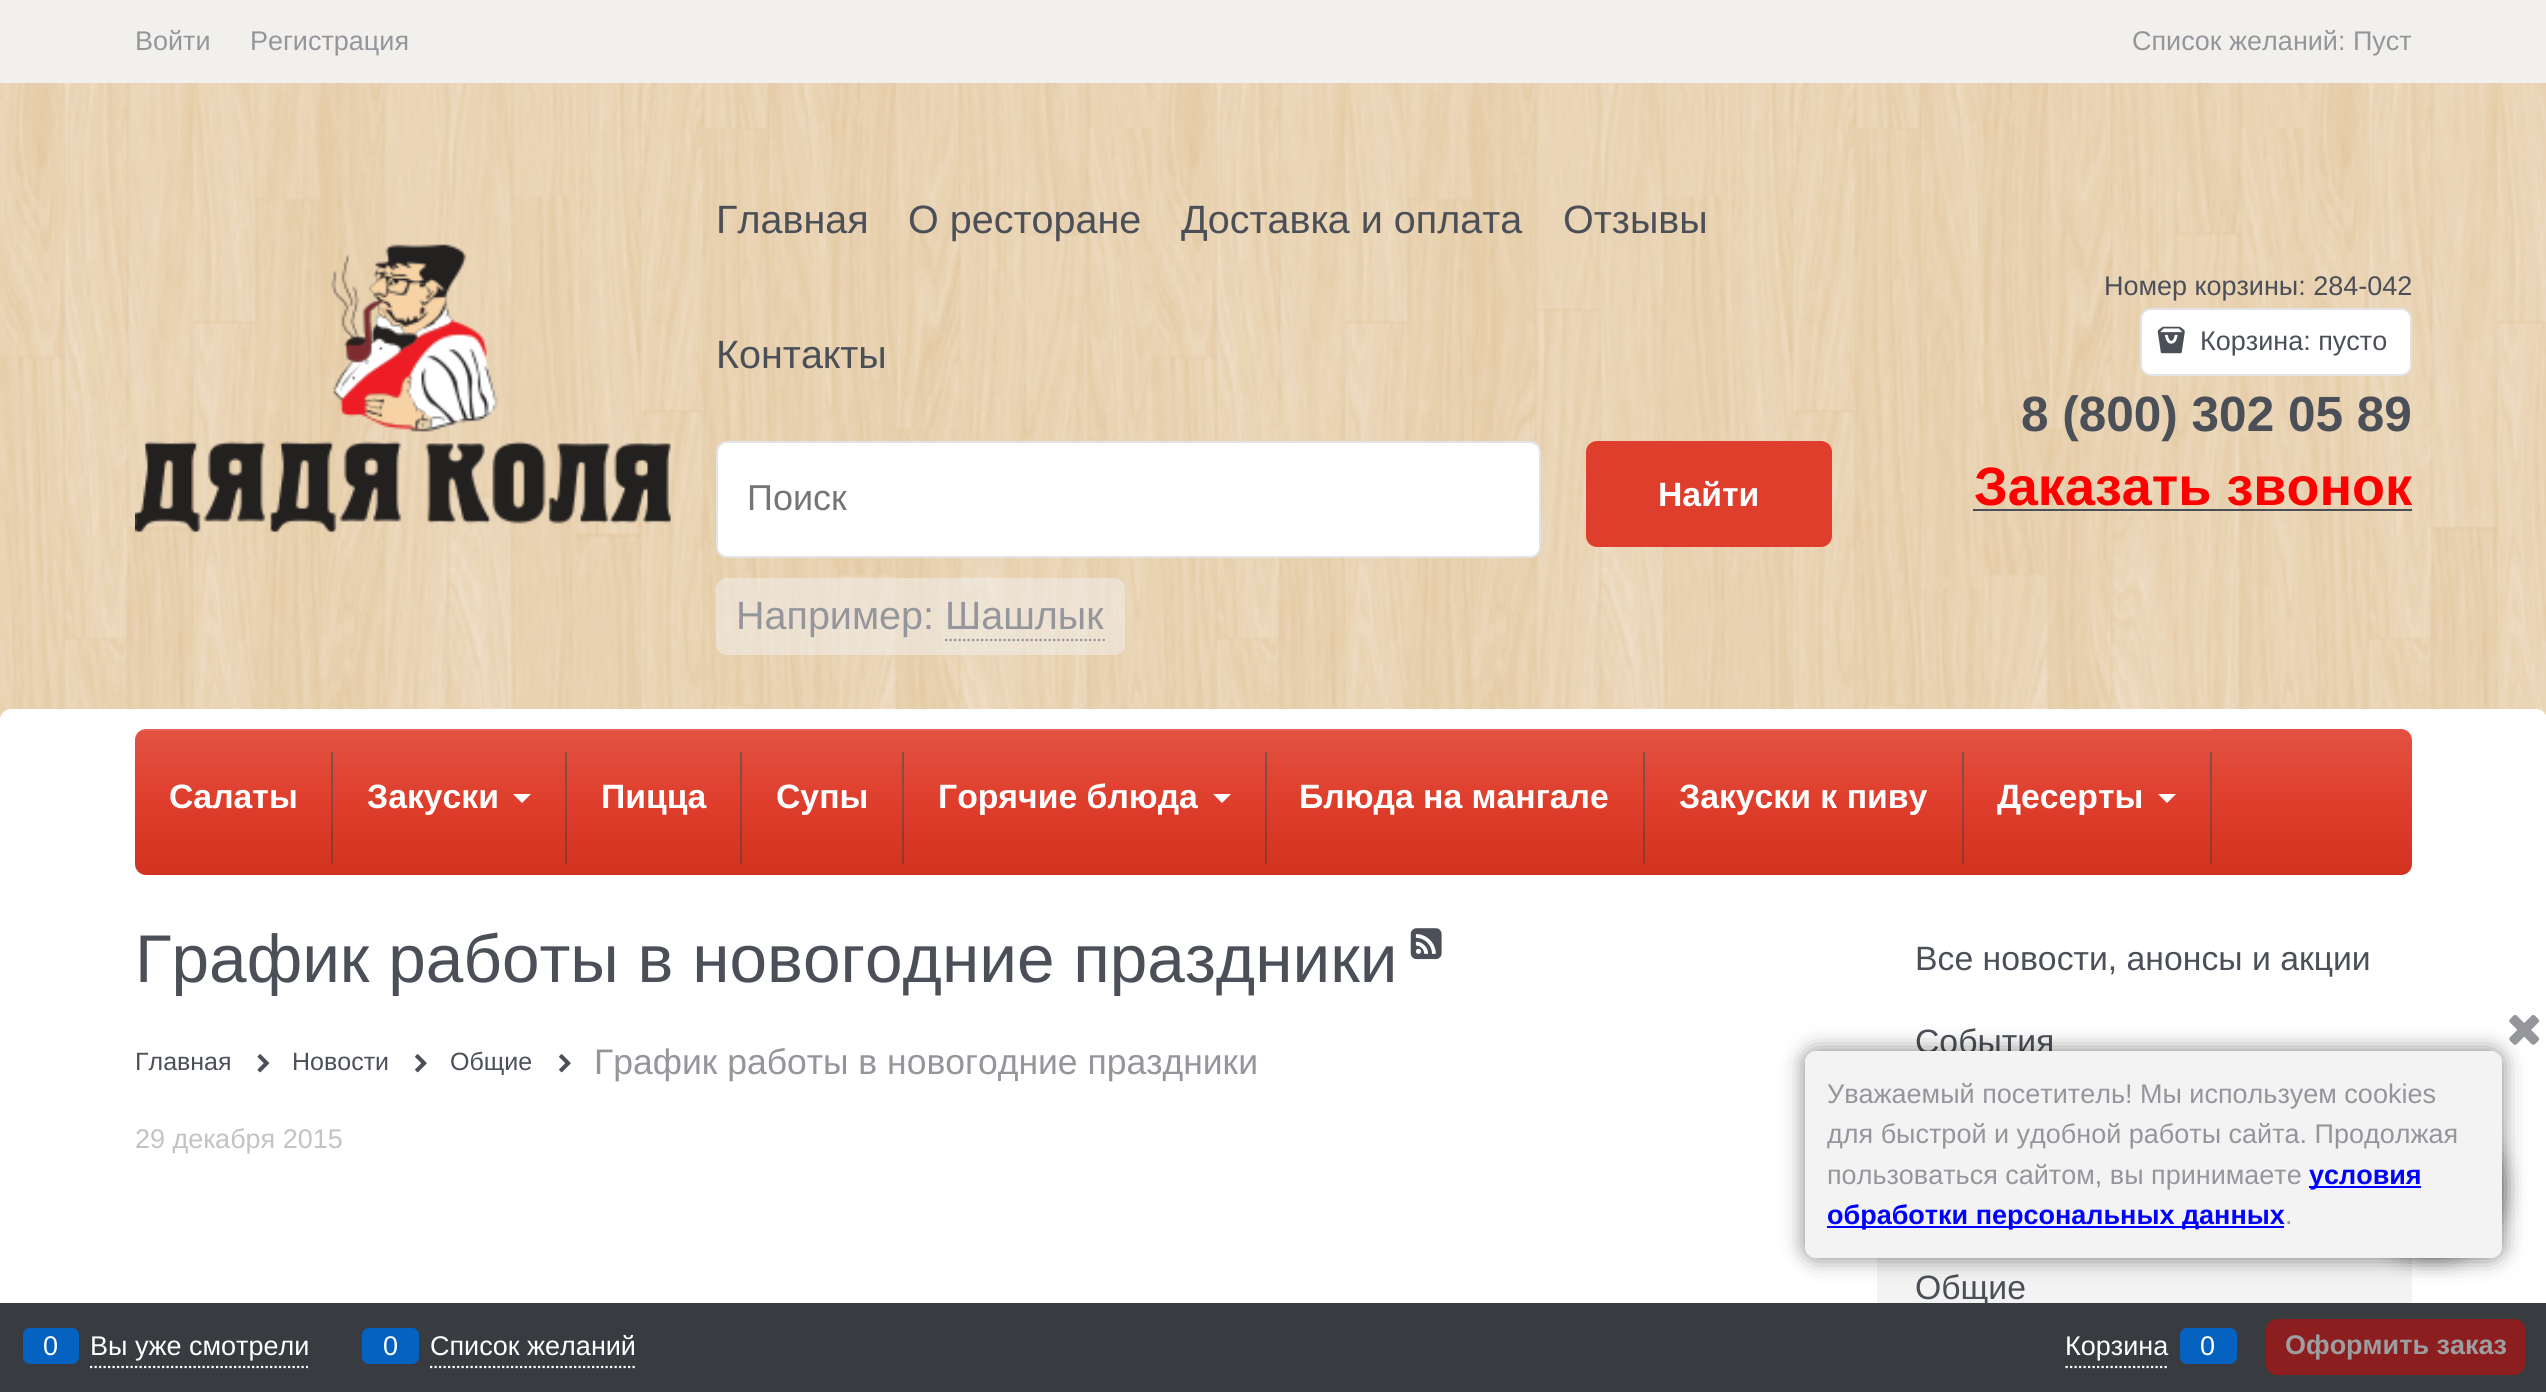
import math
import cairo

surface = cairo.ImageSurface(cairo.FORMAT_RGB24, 2546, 1392)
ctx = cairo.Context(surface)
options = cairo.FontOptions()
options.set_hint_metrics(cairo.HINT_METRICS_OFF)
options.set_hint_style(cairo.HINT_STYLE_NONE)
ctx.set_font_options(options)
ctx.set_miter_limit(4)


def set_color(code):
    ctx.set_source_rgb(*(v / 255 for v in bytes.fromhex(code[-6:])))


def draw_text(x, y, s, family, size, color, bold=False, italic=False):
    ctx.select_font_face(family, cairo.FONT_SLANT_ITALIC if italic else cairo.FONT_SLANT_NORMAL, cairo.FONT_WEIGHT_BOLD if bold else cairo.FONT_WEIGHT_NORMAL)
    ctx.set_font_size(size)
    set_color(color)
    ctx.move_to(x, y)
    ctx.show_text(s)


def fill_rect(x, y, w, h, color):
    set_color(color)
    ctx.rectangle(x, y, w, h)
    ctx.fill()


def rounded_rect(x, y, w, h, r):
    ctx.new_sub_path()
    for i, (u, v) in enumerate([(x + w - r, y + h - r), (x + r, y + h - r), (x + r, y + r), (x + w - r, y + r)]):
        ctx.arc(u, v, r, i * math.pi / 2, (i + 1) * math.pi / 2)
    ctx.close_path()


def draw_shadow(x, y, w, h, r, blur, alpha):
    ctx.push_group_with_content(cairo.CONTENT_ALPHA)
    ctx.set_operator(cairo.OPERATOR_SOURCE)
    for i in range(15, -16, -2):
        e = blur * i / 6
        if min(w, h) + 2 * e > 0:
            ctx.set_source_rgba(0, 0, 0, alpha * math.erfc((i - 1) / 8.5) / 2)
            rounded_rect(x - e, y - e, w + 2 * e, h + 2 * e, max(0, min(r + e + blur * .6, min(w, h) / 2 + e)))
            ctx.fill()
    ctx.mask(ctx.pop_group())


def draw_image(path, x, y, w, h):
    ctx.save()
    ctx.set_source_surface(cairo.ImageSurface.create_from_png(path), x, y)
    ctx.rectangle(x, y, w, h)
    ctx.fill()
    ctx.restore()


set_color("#ffffff")
ctx.paint()
draw_image("assets/img1.png", 0, 0, 2546, 720)
ctx.set_source_rgba(0.953, 0.953, 0.953, 0.9)
ctx.rectangle(0, 0, 2546, 83)
ctx.fill()
draw_text(135, 50, "Войти", "Liberation Sans", 27, "#94969b")
draw_text(250, 50, "Регистрация", "Liberation Sans", 27, "#94969b")
draw_text(2132, 50, "Список желаний: Пуст", "Liberation Sans", 27, "#94969b")
draw_image("assets/img2.png", 135, 244, 536, 289)
draw_text(716, 233, "Главная", "Liberation Sans", 39.5, "#4b4f58")
draw_text(908, 233, "О ресторане", "Liberation Sans", 39.5, "#4b4f58")
draw_text(1181, 233, "Доставка и оплата", "Liberation Sans", 39.5, "#4b4f58")
draw_text(1563, 233, "Отзывы", "Liberation Sans", 39.5, "#4b4f58")
draw_text(716, 368, "Контакты", "Liberation Sans", 39.5, "#4b4f58")
set_color("#ffffff")
rounded_rect(717, 442, 823, 115, 10)
ctx.fill_preserve()
set_color("#e2e3e4")
ctx.stroke()
draw_text(747, 510, "Поиск", "Liberation Sans", 36, "#757575")
ctx.set_source_rgba(0.953, 0.953, 0.953, 0.5)
rounded_rect(716, 578, 409, 77, 11)
ctx.fill()
draw_text(736, 629, "Например: Шашлык", "Liberation Sans", 39.5, "#94969b")
ctx.new_path()
ctx.move_to(945, 640)
ctx.line_to(1105, 640)
ctx.set_line_width(2.2)
ctx.set_dash([2.25, 2.25])
ctx.stroke()
set_color("#df3e2c")
rounded_rect(1586, 441, 246, 106, 11)
ctx.fill()
draw_text(1658, 506, "Найти", "Liberation Sans", 33.75, "#ffffff", bold=True)
draw_text(2104, 295, "Номер корзины: 284-042", "Liberation Sans", 27, "#4b4f58")
set_color("#ffffff")
rounded_rect(2141, 309, 270, 66, 10)
ctx.fill_preserve()
set_color("#e2e3e4")
ctx.set_line_width(2)
ctx.set_dash([])
ctx.stroke()
draw_image("assets/img3.png", 2157, 326, 28, 28)
draw_text(2200, 350, "Корзина: пусто", "Liberation Sans", 27, "#4b4f58")
draw_text(2021, 431, "8 (800) 302 05 89", "Liberation Sans", 49.5, "#4b4f58", bold=True)
draw_text(1974, 505, "Заказать звонок", "Liberation Sans", 54, "#ff0000", bold=True)
fill_rect(1973, 509, 439, 2, "#4b4f58")
set_color("#ffffff")
rounded_rect(0, 709, 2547, 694, 11)
ctx.fill()
gradient = cairo.LinearGradient(1274, 729, 1274, 875)
gradient.add_color_stop_rgba(0, 0.886, 0.322, 0.259, 1)
gradient.add_color_stop_rgba(0.5, 0.875, 0.243, 0.173, 1)
gradient.add_color_stop_rgba(1, 0.824, 0.196, 0.125, 1)
ctx.set_source(gradient)
rounded_rect(135, 729, 2277, 146, 11)
ctx.fill()
ctx.set_source_rgba(1, 1, 1, 0.1)
ctx.rectangle(135, 729, 2077, 2)
ctx.fill()
draw_text(169, 808, "Салаты", "Liberation Sans", 33.75, "#ffffff", bold=True)
ctx.set_source_rgba(0.224, 0.224, 0.224, 0.39)
ctx.rectangle(331, 752, 2, 112)
ctx.fill()
gradient = cairo.LinearGradient(332, 752, 332, 864)
gradient.add_color_stop_rgba(0, 1, 1, 1, 0.14)
gradient.add_color_stop_rgba(0.72, 1, 1, 1, 0.02)
gradient.add_color_stop_rgba(1, 1, 1, 1, 0)
ctx.set_source(gradient)
ctx.rectangle(331, 752, 2, 80)
ctx.fill()
gradient = cairo.LinearGradient(332, 752, 332, 864)
gradient.add_color_stop_rgba(0, 0.224, 0.224, 0.224, 0.39)
gradient.add_color_stop_rgba(0.17, 0.224, 0.224, 0.224, 0.33)
gradient.add_color_stop_rgba(0.61, 0.224, 0.224, 0.224, 0.12)
gradient.add_color_stop_rgba(0.96, 0.224, 0.224, 0.224, 0.01)
gradient.add_color_stop_rgba(0.98, 1, 1, 1, 0.01)
gradient.add_color_stop_rgba(1, 1, 1, 1, 0)
ctx.set_source(gradient)
ctx.rectangle(331, 752, 2, 103)
ctx.fill()
draw_text(367, 808, "Закуски", "Liberation Sans", 33.75, "#ffffff", bold=True)
ctx.new_path()
ctx.move_to(513, 794)
ctx.line_to(531, 794)
ctx.line_to(522, 803)
ctx.close_path()
ctx.fill()
ctx.set_source_rgba(0.224, 0.224, 0.224, 0.39)
ctx.rectangle(565, 752, 2, 112)
ctx.fill()
gradient = cairo.LinearGradient(566, 752, 566, 864)
gradient.add_color_stop_rgba(0, 1, 1, 1, 0.14)
gradient.add_color_stop_rgba(0.72, 1, 1, 1, 0.02)
gradient.add_color_stop_rgba(1, 1, 1, 1, 0)
ctx.set_source(gradient)
ctx.rectangle(565, 752, 2, 80)
ctx.fill()
gradient = cairo.LinearGradient(566, 752, 566, 864)
gradient.add_color_stop_rgba(0, 0.224, 0.224, 0.224, 0.39)
gradient.add_color_stop_rgba(0.17, 0.224, 0.224, 0.224, 0.33)
gradient.add_color_stop_rgba(0.61, 0.224, 0.224, 0.224, 0.12)
gradient.add_color_stop_rgba(0.96, 0.224, 0.224, 0.224, 0.01)
gradient.add_color_stop_rgba(0.98, 1, 1, 1, 0.01)
gradient.add_color_stop_rgba(1, 1, 1, 1, 0)
ctx.set_source(gradient)
ctx.rectangle(565, 752, 2, 103)
ctx.fill()
draw_text(601, 808, "Пицца", "Liberation Sans", 33.75, "#ffffff", bold=True)
ctx.set_source_rgba(0.224, 0.224, 0.224, 0.39)
ctx.rectangle(740, 752, 2, 112)
ctx.fill()
gradient = cairo.LinearGradient(741, 752, 741, 864)
gradient.add_color_stop_rgba(0, 1, 1, 1, 0.14)
gradient.add_color_stop_rgba(0.72, 1, 1, 1, 0.02)
gradient.add_color_stop_rgba(1, 1, 1, 1, 0)
ctx.set_source(gradient)
ctx.rectangle(740, 752, 2, 80)
ctx.fill()
gradient = cairo.LinearGradient(741, 752, 741, 864)
gradient.add_color_stop_rgba(0, 0.224, 0.224, 0.224, 0.39)
gradient.add_color_stop_rgba(0.17, 0.224, 0.224, 0.224, 0.33)
gradient.add_color_stop_rgba(0.61, 0.224, 0.224, 0.224, 0.12)
gradient.add_color_stop_rgba(0.96, 0.224, 0.224, 0.224, 0.01)
gradient.add_color_stop_rgba(0.98, 1, 1, 1, 0.01)
gradient.add_color_stop_rgba(1, 1, 1, 1, 0)
ctx.set_source(gradient)
ctx.rectangle(740, 752, 2, 103)
ctx.fill()
draw_text(776, 808, "Супы", "Liberation Sans", 33.75, "#ffffff", bold=True)
ctx.set_source_rgba(0.224, 0.224, 0.224, 0.39)
ctx.rectangle(902, 752, 2, 112)
ctx.fill()
gradient = cairo.LinearGradient(903, 752, 903, 864)
gradient.add_color_stop_rgba(0, 1, 1, 1, 0.14)
gradient.add_color_stop_rgba(0.72, 1, 1, 1, 0.02)
gradient.add_color_stop_rgba(1, 1, 1, 1, 0)
ctx.set_source(gradient)
ctx.rectangle(902, 752, 2, 80)
ctx.fill()
gradient = cairo.LinearGradient(903, 752, 903, 864)
gradient.add_color_stop_rgba(0, 0.224, 0.224, 0.224, 0.39)
gradient.add_color_stop_rgba(0.17, 0.224, 0.224, 0.224, 0.33)
gradient.add_color_stop_rgba(0.61, 0.224, 0.224, 0.224, 0.12)
gradient.add_color_stop_rgba(0.96, 0.224, 0.224, 0.224, 0.01)
gradient.add_color_stop_rgba(0.98, 1, 1, 1, 0.01)
gradient.add_color_stop_rgba(1, 1, 1, 1, 0)
ctx.set_source(gradient)
ctx.rectangle(902, 752, 2, 103)
ctx.fill()
draw_text(938, 808, "Горячие блюда", "Liberation Sans", 33.75, "#ffffff", bold=True)
ctx.new_path()
ctx.move_to(1213, 794)
ctx.line_to(1231, 794)
ctx.line_to(1222, 803)
ctx.close_path()
ctx.fill()
ctx.set_source_rgba(0.224, 0.224, 0.224, 0.39)
ctx.rectangle(1265, 752, 2, 112)
ctx.fill()
gradient = cairo.LinearGradient(1266, 752, 1266, 864)
gradient.add_color_stop_rgba(0, 1, 1, 1, 0.14)
gradient.add_color_stop_rgba(0.72, 1, 1, 1, 0.02)
gradient.add_color_stop_rgba(1, 1, 1, 1, 0)
ctx.set_source(gradient)
ctx.rectangle(1265, 752, 2, 80)
ctx.fill()
gradient = cairo.LinearGradient(1266, 752, 1266, 864)
gradient.add_color_stop_rgba(0, 0.224, 0.224, 0.224, 0.39)
gradient.add_color_stop_rgba(0.17, 0.224, 0.224, 0.224, 0.33)
gradient.add_color_stop_rgba(0.61, 0.224, 0.224, 0.224, 0.12)
gradient.add_color_stop_rgba(0.96, 0.224, 0.224, 0.224, 0.01)
gradient.add_color_stop_rgba(0.98, 1, 1, 1, 0.01)
gradient.add_color_stop_rgba(1, 1, 1, 1, 0)
ctx.set_source(gradient)
ctx.rectangle(1265, 752, 2, 103)
ctx.fill()
draw_text(1299, 808, "Блюда на мангале", "Liberation Sans", 33.75, "#ffffff", bold=True)
ctx.set_source_rgba(0.224, 0.224, 0.224, 0.39)
ctx.rectangle(1643, 752, 2, 112)
ctx.fill()
gradient = cairo.LinearGradient(1644, 752, 1644, 864)
gradient.add_color_stop_rgba(0, 1, 1, 1, 0.14)
gradient.add_color_stop_rgba(0.72, 1, 1, 1, 0.02)
gradient.add_color_stop_rgba(1, 1, 1, 1, 0)
ctx.set_source(gradient)
ctx.rectangle(1643, 752, 2, 80)
ctx.fill()
gradient = cairo.LinearGradient(1644, 752, 1644, 864)
gradient.add_color_stop_rgba(0, 0.224, 0.224, 0.224, 0.39)
gradient.add_color_stop_rgba(0.17, 0.224, 0.224, 0.224, 0.33)
gradient.add_color_stop_rgba(0.61, 0.224, 0.224, 0.224, 0.12)
gradient.add_color_stop_rgba(0.96, 0.224, 0.224, 0.224, 0.01)
gradient.add_color_stop_rgba(0.98, 1, 1, 1, 0.01)
gradient.add_color_stop_rgba(1, 1, 1, 1, 0)
ctx.set_source(gradient)
ctx.rectangle(1643, 752, 2, 103)
ctx.fill()
draw_text(1679, 808, "Закуски к пиву", "Liberation Sans", 33.75, "#ffffff", bold=True)
ctx.set_source_rgba(0.224, 0.224, 0.224, 0.39)
ctx.rectangle(1962, 752, 2, 112)
ctx.fill()
gradient = cairo.LinearGradient(1963, 752, 1963, 864)
gradient.add_color_stop_rgba(0, 1, 1, 1, 0.14)
gradient.add_color_stop_rgba(0.72, 1, 1, 1, 0.02)
gradient.add_color_stop_rgba(1, 1, 1, 1, 0)
ctx.set_source(gradient)
ctx.rectangle(1962, 752, 2, 80)
ctx.fill()
gradient = cairo.LinearGradient(1963, 752, 1963, 864)
gradient.add_color_stop_rgba(0, 0.224, 0.224, 0.224, 0.39)
gradient.add_color_stop_rgba(0.17, 0.224, 0.224, 0.224, 0.33)
gradient.add_color_stop_rgba(0.61, 0.224, 0.224, 0.224, 0.12)
gradient.add_color_stop_rgba(0.96, 0.224, 0.224, 0.224, 0.01)
gradient.add_color_stop_rgba(0.98, 1, 1, 1, 0.01)
gradient.add_color_stop_rgba(1, 1, 1, 1, 0)
ctx.set_source(gradient)
ctx.rectangle(1962, 752, 2, 103)
ctx.fill()
draw_text(1997, 808, "Десерты", "Liberation Sans", 33.75, "#ffffff", bold=True)
ctx.new_path()
ctx.move_to(2158, 794)
ctx.line_to(2176, 794)
ctx.line_to(2167, 803)
ctx.close_path()
ctx.fill()
ctx.set_source_rgba(0.224, 0.224, 0.224, 0.39)
ctx.rectangle(2210, 752, 2, 112)
ctx.fill()
gradient = cairo.LinearGradient(2211, 752, 2211, 864)
gradient.add_color_stop_rgba(0, 1, 1, 1, 0.14)
gradient.add_color_stop_rgba(0.72, 1, 1, 1, 0.02)
gradient.add_color_stop_rgba(1, 1, 1, 1, 0)
ctx.set_source(gradient)
ctx.rectangle(2210, 752, 2, 80)
ctx.fill()
gradient = cairo.LinearGradient(2211, 752, 2211, 864)
gradient.add_color_stop_rgba(0, 0.224, 0.224, 0.224, 0.39)
gradient.add_color_stop_rgba(0.17, 0.224, 0.224, 0.224, 0.33)
gradient.add_color_stop_rgba(0.61, 0.224, 0.224, 0.224, 0.12)
gradient.add_color_stop_rgba(0.96, 0.224, 0.224, 0.224, 0.01)
gradient.add_color_stop_rgba(0.98, 1, 1, 1, 0.01)
gradient.add_color_stop_rgba(1, 1, 1, 1, 0)
ctx.set_source(gradient)
ctx.rectangle(2210, 752, 2, 103)
ctx.fill()
draw_text(135, 982, "График работы в новогодние праздники", "Liberation Sans", 67.5, "#4b4f58")
draw_image("assets/img4.png", 1410, 928, 32, 32)
draw_text(135, 1070, "Главная", "Liberation Sans", 25, "#4b4f58")
draw_image("assets/img5.png", 257, 1054, 13, 19)
draw_text(292, 1070, "Новости", "Liberation Sans", 25, "#4b4f58")
draw_image("assets/img6.png", 415, 1054, 12, 19)
draw_text(450, 1070, "Общие", "Liberation Sans", 25, "#4b4f58")
draw_image("assets/img6.png", 559, 1054, 12, 19)
draw_text(594, 1074, "График работы в новогодние праздники", "Liberation Sans", 35.5, "#94969b")
draw_text(135, 1148, "29 декабря 2015", "Liberation Sans", 27, "#c3c3c3")
draw_text(1915, 970, "Все новости, анонсы и акции", "Liberation Sans", 33.75, "#4b4f58")
draw_text(1915, 1053, "События", "Liberation Sans", 33.75, "#4b4f58")
fill_rect(1877, 1258, 535, 45, "#f3f3f3")
draw_text(1915, 1299, "Общие", "Liberation Sans", 33.75, "#4b4f58")
fill_rect(0, 1303, 2546, 89, "#383c40")
ctx.new_path()
ctx.move_to(90, 1367)
ctx.line_to(308, 1367)
set_color("#ffffff")
ctx.set_line_width(2.2)
ctx.set_dash([2.25, 2.25])
ctx.stroke()
set_color("#0662c1")
rounded_rect(23, 1328, 56, 36, 7)
ctx.fill()
draw_text(43, 1355, "0", "Liberation Sans", 27, "#ffffff")
draw_text(90, 1355, "Вы уже смотрели", "Liberation Sans", 27, "#ffffff")
ctx.new_path()
ctx.move_to(430, 1367)
ctx.line_to(637, 1367)
ctx.stroke()
set_color("#0662c1")
rounded_rect(362, 1328, 57, 36, 7)
ctx.fill()
draw_text(383, 1355, "0", "Liberation Sans", 27, "#ffffff")
draw_text(430, 1355, "Список желаний", "Liberation Sans", 27, "#ffffff")
ctx.new_path()
ctx.move_to(2065.5, 1367)
ctx.line_to(2169, 1367)
ctx.stroke()
draw_text(2065, 1355, "Корзина", "Liberation Sans", 27, "#ffffff")
set_color("#0662c1")
rounded_rect(2180, 1328, 57, 36, 7)
ctx.fill()
draw_text(2200, 1355, "0", "Liberation Sans", 27, "#ffffff")
set_color("#8d1e20")
rounded_rect(2266, 1319, 259, 56, 11)
ctx.fill()
draw_text(2285, 1354, "Оформить заказ", "Liberation Sans", 27, "#9c9ea0", bold=True)
set_color("#000000")
draw_shadow(1805, 1051, 697, 207, 11, 11, 0.5)
draw_shadow(2363, 1118, 139, 140, 69.5, 11, 0.5)
set_color("#f3f3f3")
rounded_rect(1805, 1051, 697, 207, 11)
ctx.fill()
draw_image("assets/img7.png", 2509, 1015, 30, 30)
draw_text(1827, 1103, "Уважаемый посетитель! Мы используем cookies", "Liberation Sans", 27, "#94969b")
draw_text(1827, 1143, "для быстрой и удобной работы сайта. Продолжая", "Liberation Sans", 27, "#94969b")
draw_text(1827, 1184, "пользоваться сайтом, вы принимаете", "Liberation Sans", 27, "#94969b")
fill_rect(2309, 1186, 112, 2, "#0000ff")
draw_text(2309, 1184, "условия", "Liberation Sans", 27, "#0000ff", bold=True)
fill_rect(1827, 1226, 457, 2, "#0000ff")
draw_text(1827, 1224, "обработки персональных данных", "Liberation Sans", 27, "#0000ff", bold=True)
draw_text(2285, 1224, ".", "Liberation Sans", 27, "#94969b")
surface.write_to_png("output.png")
